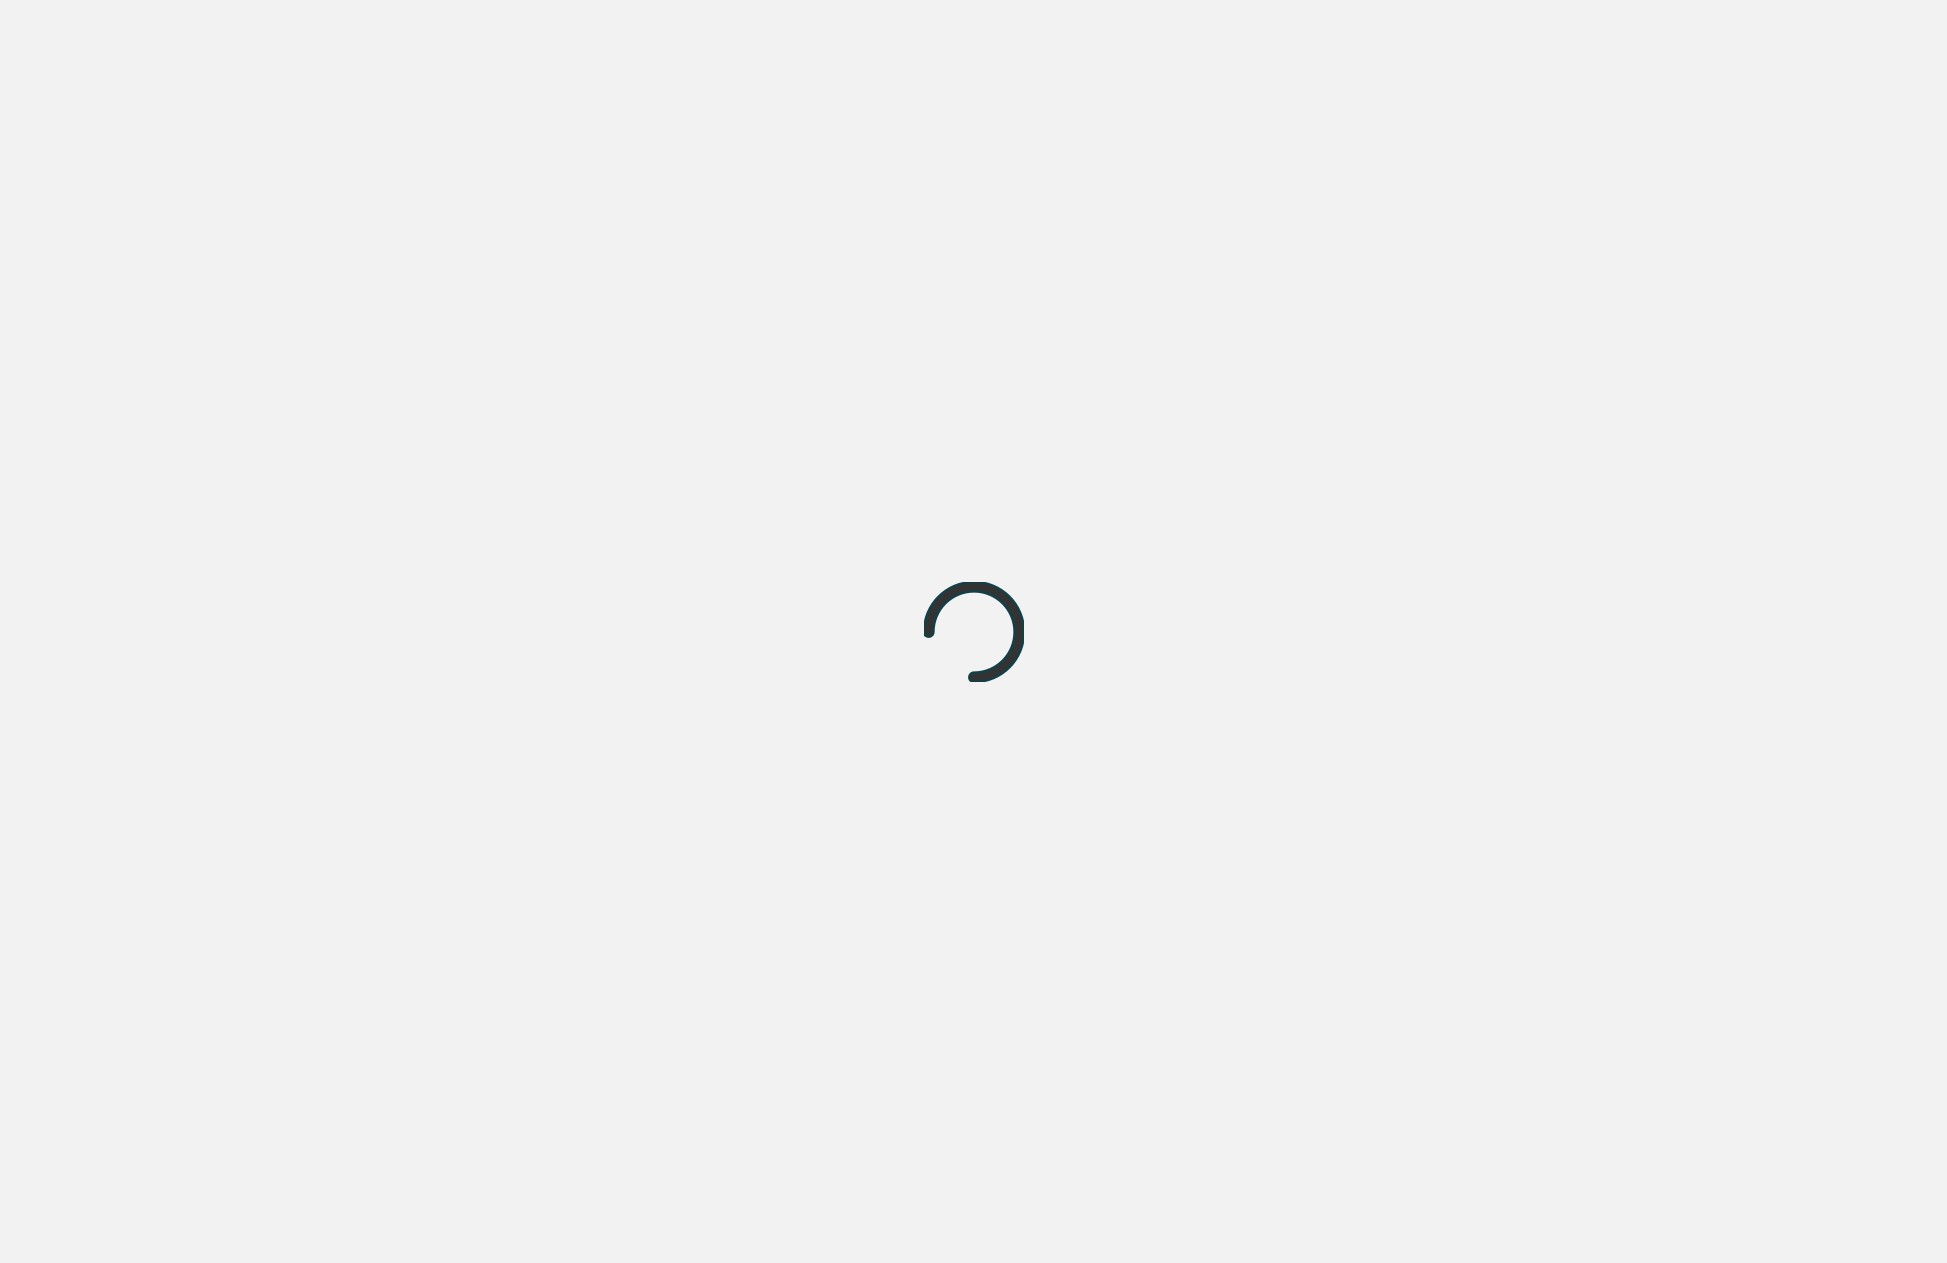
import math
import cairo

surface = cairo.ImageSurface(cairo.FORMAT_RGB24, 1947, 1263)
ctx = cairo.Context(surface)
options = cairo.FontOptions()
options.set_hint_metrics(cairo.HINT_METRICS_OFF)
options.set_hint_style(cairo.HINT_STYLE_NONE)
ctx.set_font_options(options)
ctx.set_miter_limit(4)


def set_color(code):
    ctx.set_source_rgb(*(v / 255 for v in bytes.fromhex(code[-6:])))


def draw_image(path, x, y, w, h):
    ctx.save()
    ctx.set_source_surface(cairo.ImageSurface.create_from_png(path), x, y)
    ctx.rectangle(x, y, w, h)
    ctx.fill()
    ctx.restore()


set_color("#f2f2f2")
ctx.paint()
draw_image("assets/img1.png", 924, 582, 100, 100)
surface.write_to_png("output.png")
